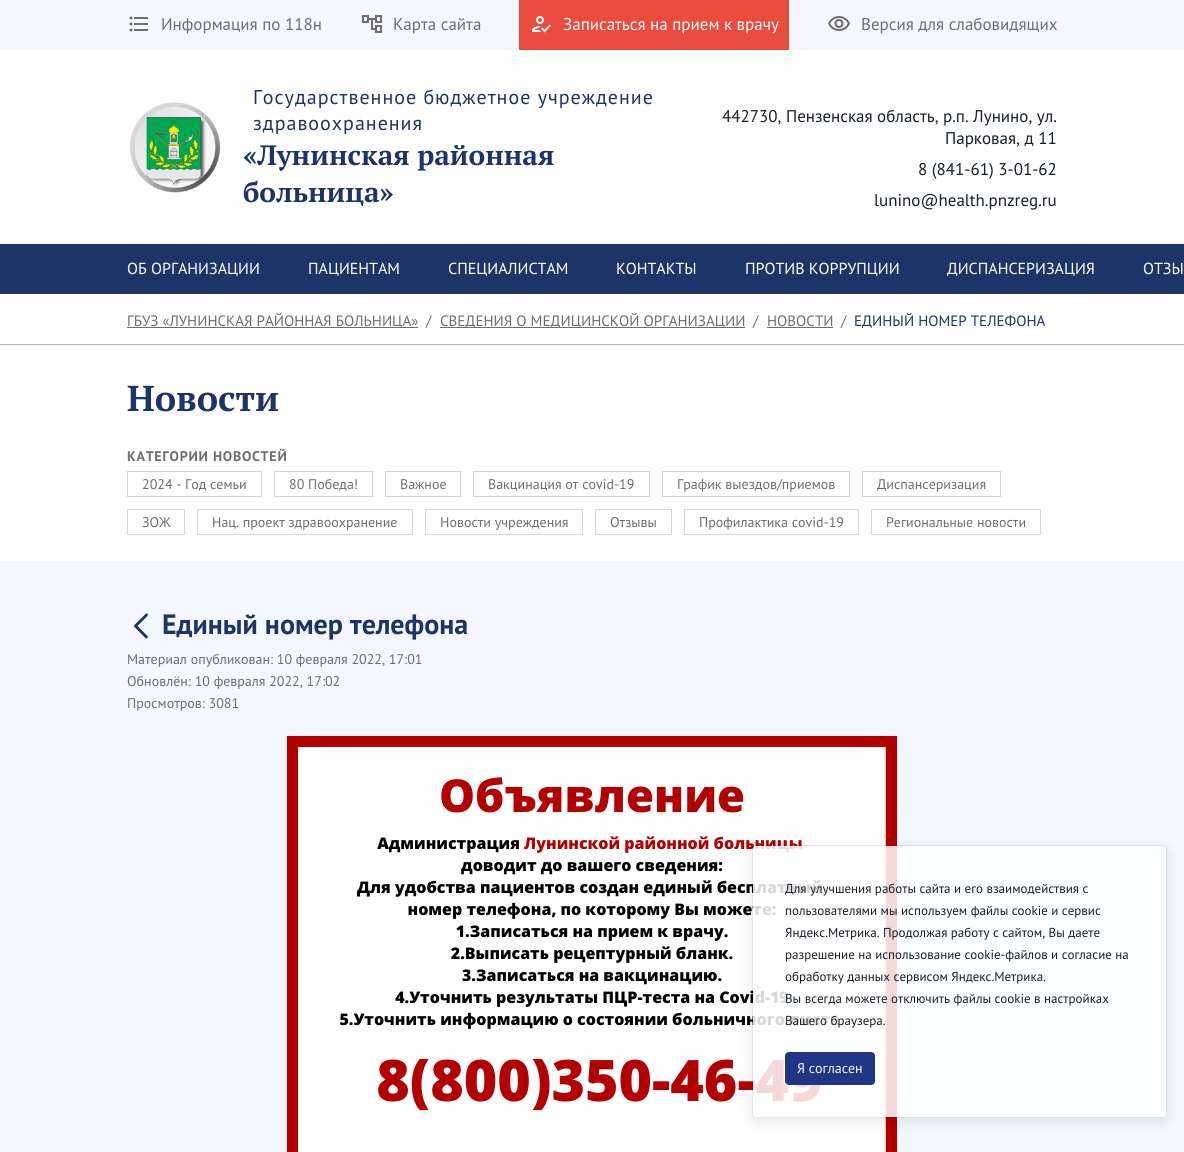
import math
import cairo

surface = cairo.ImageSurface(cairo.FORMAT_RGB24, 1184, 1152)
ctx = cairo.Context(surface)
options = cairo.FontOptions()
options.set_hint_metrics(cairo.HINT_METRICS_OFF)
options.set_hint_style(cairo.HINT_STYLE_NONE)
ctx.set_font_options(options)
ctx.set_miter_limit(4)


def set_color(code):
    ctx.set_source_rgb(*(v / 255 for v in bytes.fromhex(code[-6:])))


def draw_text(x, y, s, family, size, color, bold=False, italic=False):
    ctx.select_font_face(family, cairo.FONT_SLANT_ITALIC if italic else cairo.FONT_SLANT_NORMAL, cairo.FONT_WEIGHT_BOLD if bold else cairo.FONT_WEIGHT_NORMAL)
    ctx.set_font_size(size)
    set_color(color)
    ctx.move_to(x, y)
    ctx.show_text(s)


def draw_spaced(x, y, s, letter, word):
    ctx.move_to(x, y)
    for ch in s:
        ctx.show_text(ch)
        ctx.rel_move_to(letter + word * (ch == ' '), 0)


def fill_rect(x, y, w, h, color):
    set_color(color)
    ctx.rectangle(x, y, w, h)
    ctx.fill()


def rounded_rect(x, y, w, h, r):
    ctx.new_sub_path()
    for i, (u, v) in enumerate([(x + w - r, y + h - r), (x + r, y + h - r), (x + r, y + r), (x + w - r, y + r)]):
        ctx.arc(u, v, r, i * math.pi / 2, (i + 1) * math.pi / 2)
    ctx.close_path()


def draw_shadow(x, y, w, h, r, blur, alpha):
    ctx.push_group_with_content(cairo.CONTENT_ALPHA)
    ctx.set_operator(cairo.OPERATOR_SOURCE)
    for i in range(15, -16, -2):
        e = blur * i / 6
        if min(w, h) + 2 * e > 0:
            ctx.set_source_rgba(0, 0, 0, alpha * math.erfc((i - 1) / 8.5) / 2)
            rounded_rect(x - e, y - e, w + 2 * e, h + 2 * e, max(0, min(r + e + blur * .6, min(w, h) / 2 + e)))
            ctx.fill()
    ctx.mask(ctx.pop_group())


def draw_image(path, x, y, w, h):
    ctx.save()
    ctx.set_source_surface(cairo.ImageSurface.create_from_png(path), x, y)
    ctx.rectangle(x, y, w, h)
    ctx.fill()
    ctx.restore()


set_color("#ffffff")
ctx.paint()
fill_rect(0, 0, 1184, 50, "#f4f7fd")
draw_image("assets/img1.png", 129, 16, 19, 16)
draw_text(161, 30, "Информация по 118н", "PT Sans", 17, "#706d6d")
draw_image("assets/img2.png", 362, 15, 20, 18)
draw_text(393, 30, "Карта сайта", "PT Sans", 17, "#706d6d")
fill_rect(519, 0, 270, 50, "#e94b3d")
draw_image("assets/img3.png", 532, 16, 19, 17)
draw_text(563, 30, "Записаться на прием к врачу", "PT Sans", 17, "#ffffff")
draw_image("assets/img4.png", 828, 16, 22, 15)
draw_text(861, 30, "Версия для слабовидящих", "PT Sans", 17, "#706d6d")
draw_image("assets/img5.png", 129, 102, 92, 91)
ctx.set_font_size(20)
set_color("#1c3467")
draw_spaced(253, 104, "Государственное бюджетное учреждение", 1, 0)
draw_spaced(253, 130, "здравоохранения", 1, 0)
draw_text(243, 165, "«Лунинская районная", "PT Serif", 28, "#1c3467", bold=True)
draw_text(243, 202, "больница»", "PT Serif", 28, "#1c3467", bold=True)
draw_text(722, 122, "442730, Пензенская область, р.п. Лунино, ул.", "PT Sans", 17, "#161e26")
draw_text(945, 144, "Парковая, д 11", "PT Sans", 17, "#161e26")
draw_text(918, 175, "8 (841-61) 3-01-62", "PT Sans", 17, "#161e26")
draw_text(874, 206, "lunino@health.pnzreg.ru", "PT Sans", 17, "#161e26")
fill_rect(0, 244, 1184, 50, "#1c3467")
draw_text(127, 274, "ОБ ОРГАНИЗАЦИИ", "PT Sans", 16, "#ffffff")
draw_text(308, 274, "ПАЦИЕНТАМ", "PT Sans", 16, "#ffffff")
draw_text(448, 274, "СПЕЦИАЛИСТАМ", "PT Sans", 16, "#ffffff")
draw_text(616, 274, "КОНТАКТЫ", "PT Sans", 16, "#ffffff")
draw_text(745, 274, "ПРОТИВ КОРРУПЦИИ", "PT Sans", 16, "#ffffff")
draw_text(947, 274, "ДИСПАНСЕРИЗАЦИЯ", "PT Sans", 16, "#ffffff")
draw_text(1143, 274, "ОТЗЫ", "PT Sans", 16, "#ffffff")
fill_rect(0, 344, 1184, 1, "#a6aebf")
fill_rect(127, 327, 291, 1, "#706d6d")
draw_text(127, 326, "ГБУЗ «ЛУНИНСКАЯ РАЙОННАЯ БОЛЬНИЦА»", "PT Sans", 15, "#706d6d")
draw_text(426, 326, "/", "PT Sans", 15, "#6c757d")
fill_rect(440, 327, 305, 1, "#706d6d")
draw_text(440, 326, "СВЕДЕНИЯ О МЕДИЦИНСКОЙ ОРГАНИЗАЦИИ", "PT Sans", 15, "#706d6d")
draw_text(753, 326, "/", "PT Sans", 15, "#6c757d")
draw_text(767, 326, "НОВОСТИ", "PT Sans", 15, "#706d6d")
fill_rect(767, 327, 66, 1, "#706d6d")
draw_text(841, 326, "/", "PT Sans", 15, "#6c757d")
draw_text(854, 326, "ЕДИНЫЙ НОМЕР ТЕЛЕФОНА", "PT Sans", 15, "#1c3467")
draw_text(127, 411, "Новости", "PT Serif", 36, "#1c3467", bold=True)
ctx.select_font_face("PT Sans", cairo.FONT_SLANT_NORMAL, cairo.FONT_WEIGHT_BOLD)
ctx.set_font_size(14)
set_color("#706d6d")
draw_spaced(127, 461, "КАТЕГОРИИ НОВОСТЕЙ", 0.75, 0)
ctx.rectangle(127.5, 471.5, 134, 25)
set_color("#d3d7df")
ctx.set_line_width(1)
ctx.stroke()
draw_text(142, 489, "2024 - Год семьи", "PT Sans", 14, "#706d6d")
ctx.rectangle(274.5, 471.5, 98, 25)
set_color("#d3d7df")
ctx.stroke()
draw_text(289, 489, "80 Победа!", "PT Sans", 14, "#706d6d")
ctx.rectangle(385.5, 471.5, 75, 25)
set_color("#d3d7df")
ctx.stroke()
draw_text(400, 489, "Важное", "PT Sans", 14, "#706d6d")
ctx.rectangle(473.5, 471.5, 176, 25)
set_color("#d3d7df")
ctx.stroke()
draw_text(488, 489, "Вакцинация от covid-19", "PT Sans", 14, "#706d6d")
ctx.rectangle(662.5, 471.5, 187, 25)
set_color("#d3d7df")
ctx.stroke()
draw_text(677, 489, "График выездов/приемов", "PT Sans", 14, "#706d6d")
ctx.rectangle(862.5, 471.5, 138, 25)
set_color("#d3d7df")
ctx.stroke()
draw_text(877, 489, "Диспансеризация", "PT Sans", 14, "#706d6d")
ctx.rectangle(127.5, 509.5, 57, 25)
set_color("#d3d7df")
ctx.stroke()
draw_text(142, 527, "ЗОЖ", "PT Sans", 14, "#706d6d")
ctx.rectangle(197.5, 509.5, 215, 25)
set_color("#d3d7df")
ctx.stroke()
draw_text(212, 527, "Нац. проект здравоохранение", "PT Sans", 14, "#706d6d")
ctx.rectangle(425.5, 509.5, 157, 25)
set_color("#d3d7df")
ctx.stroke()
draw_text(440, 527, "Новости учреждения", "PT Sans", 14, "#706d6d")
ctx.rectangle(595.5, 509.5, 76, 25)
set_color("#d3d7df")
ctx.stroke()
draw_text(610, 527, "Отзывы", "PT Sans", 14, "#706d6d")
ctx.rectangle(684.5, 509.5, 174, 25)
set_color("#d3d7df")
ctx.stroke()
draw_text(699, 527, "Профилактика covid-19", "PT Sans", 14, "#706d6d")
ctx.rectangle(871.5, 509.5, 169, 25)
set_color("#d3d7df")
ctx.stroke()
draw_text(886, 527, "Региональные новости", "PT Sans", 14, "#706d6d")
fill_rect(0, 561, 1184, 591, "#f4f7fd")
draw_image("assets/img6.png", 134, 613, 14, 26)
draw_text(162, 634, "Единый номер телефона", "PT Sans", 28, "#1c3467", bold=True)
draw_text(127, 664, "Материал опубликован: 10 февраля 2022, 17:01", "PT Sans", 14, "#706d6d")
draw_text(127, 686, "Обновлён: 10 февраля 2022, 17:02", "PT Sans", 14, "#706d6d")
draw_text(127, 708, "Просмотров: 3081", "PT Sans", 14, "#706d6d")
draw_image("assets/img7.png", 287, 736, 610, 416)
ctx.save()
ctx.set_fill_rule(cairo.FILL_RULE_EVEN_ODD)
ctx.new_path()
ctx.move_to(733, 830)
ctx.line_to(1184, 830)
ctx.line_to(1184, 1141)
ctx.line_to(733, 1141)
ctx.close_path()
ctx.move_to(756, 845)
ctx.line_to(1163, 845)
ctx.curve_to(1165, 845, 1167, 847, 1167, 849)
ctx.line_to(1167, 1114)
ctx.curve_to(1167, 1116, 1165, 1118, 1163, 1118)
ctx.line_to(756, 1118)
ctx.curve_to(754, 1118, 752, 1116, 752, 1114)
ctx.line_to(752, 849)
ctx.curve_to(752, 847, 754, 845, 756, 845)
ctx.close_path()
ctx.clip()
set_color("#000000")
draw_shadow(752, 849, 415, 273, 4, 6, 0.1)
ctx.restore()
ctx.set_source_rgba(1, 1, 1, 0.85)
rounded_rect(753, 846, 413, 271, 3)
ctx.fill()
rounded_rect(752.5, 845.5, 414, 272, 3.5)
ctx.set_source_rgba(0, 0, 0, 0.1)
ctx.stroke()
draw_text(785, 893, "Для улучшения работы сайта и его взаимодействия с", "PT Sans", 13, "#161e26")
draw_text(785, 915, "пользователями мы используем файлы cookie и сервис", "PT Sans", 13, "#161e26")
draw_text(785, 937, "Яндекс.Метрика. Продолжая работу с сайтом, Вы даете", "PT Sans", 13, "#161e26")
draw_text(785, 959, "разрешение на использование cookie-файлов и согласие на", "PT Sans", 13, "#161e26")
draw_text(785, 981, "обработку данных сервисом Яндекс.Метрика.", "PT Sans", 13, "#161e26")
draw_text(785, 1003, "Вы всегда можете отключить файлы cookie в настройках", "PT Sans", 13, "#161e26")
draw_text(785, 1025, "Вашего браузера.", "PT Sans", 13, "#161e26")
set_color("#1e3685")
rounded_rect(785, 1052, 90, 33, 4)
ctx.fill()
draw_text(797, 1073, "Я согласен", "PT Sans", 14, "#ffffff")
surface.write_to_png("output.png")
